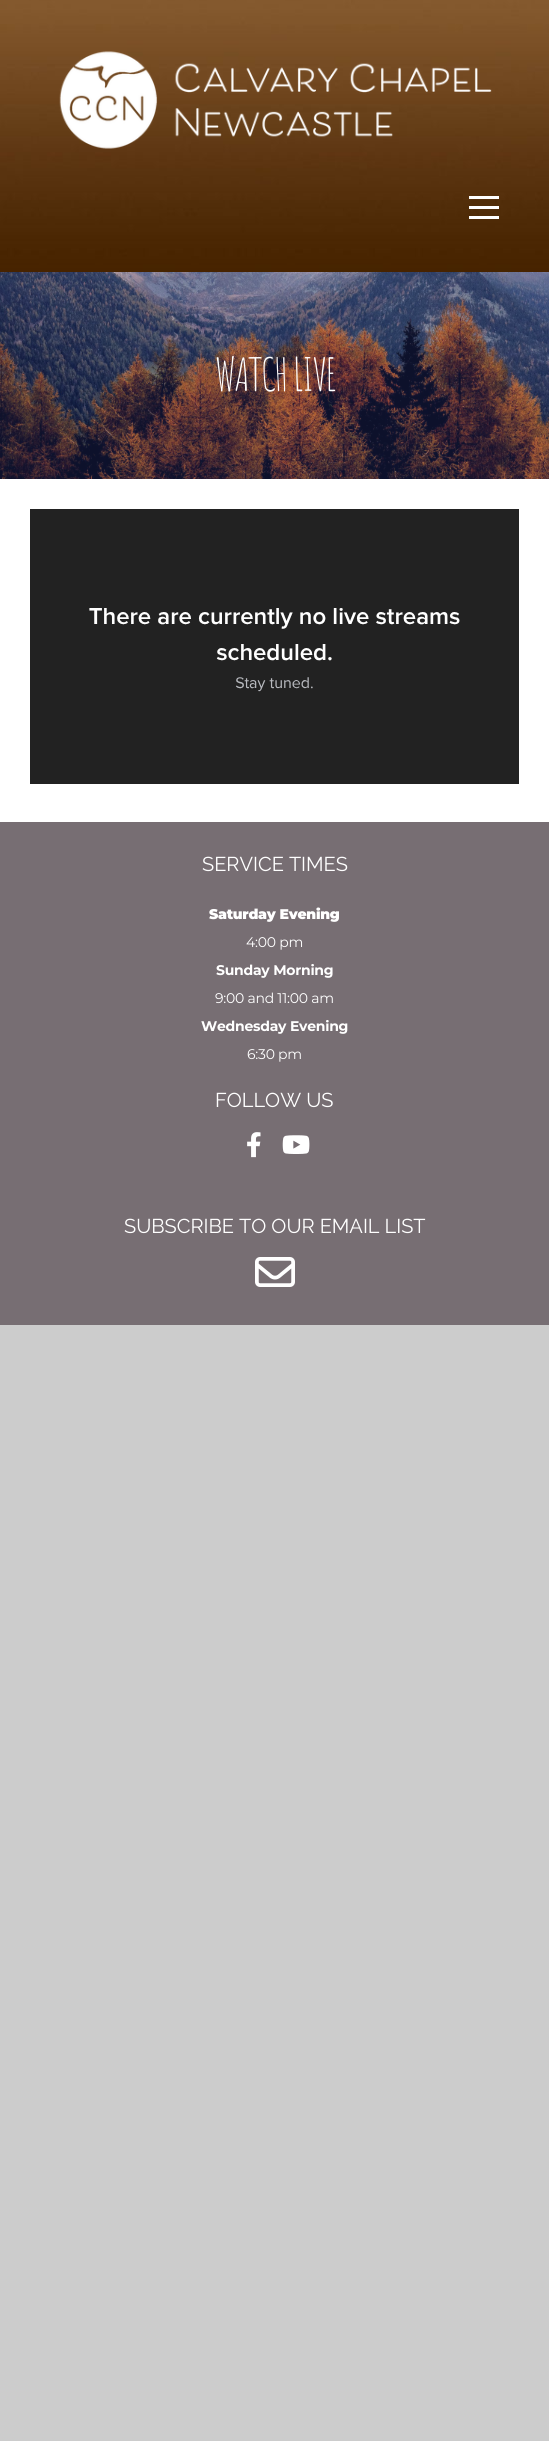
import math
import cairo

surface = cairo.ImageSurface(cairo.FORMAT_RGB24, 549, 2441)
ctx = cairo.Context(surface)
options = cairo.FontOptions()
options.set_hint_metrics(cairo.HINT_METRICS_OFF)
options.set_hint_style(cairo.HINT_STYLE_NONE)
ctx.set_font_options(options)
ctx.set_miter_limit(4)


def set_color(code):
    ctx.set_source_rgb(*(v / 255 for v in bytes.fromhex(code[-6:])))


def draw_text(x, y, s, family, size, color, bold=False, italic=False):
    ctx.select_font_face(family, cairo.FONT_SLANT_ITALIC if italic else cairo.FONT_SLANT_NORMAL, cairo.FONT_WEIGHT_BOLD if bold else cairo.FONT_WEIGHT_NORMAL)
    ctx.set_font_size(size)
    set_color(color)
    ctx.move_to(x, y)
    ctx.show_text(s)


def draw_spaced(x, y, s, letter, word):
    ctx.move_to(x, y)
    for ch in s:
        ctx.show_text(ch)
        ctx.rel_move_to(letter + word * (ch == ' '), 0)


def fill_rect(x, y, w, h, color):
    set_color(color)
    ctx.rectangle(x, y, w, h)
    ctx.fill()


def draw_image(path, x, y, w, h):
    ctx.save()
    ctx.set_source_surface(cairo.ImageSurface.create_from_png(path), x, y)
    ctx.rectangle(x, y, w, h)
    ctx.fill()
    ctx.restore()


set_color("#cccccc")
ctx.paint()
draw_image("assets/img1.png", 0, 0, 549, 272)
draw_image("assets/img2.png", 59, 51, 433, 98)
fill_rect(469, 196, 30, 3, "#ffffff")
fill_rect(469, 206, 30, 3, "#ffffff")
fill_rect(469, 216, 30, 3, "#ffffff")
draw_image("assets/img3.png", 0, 272, 549, 207)
ctx.select_font_face("Amatic SC")
ctx.set_font_size(45)
draw_spaced(215, 391, "WATCH LIVE", -1.75, 0)
fill_rect(0, 479, 549, 343, "#ffffff")
draw_image("assets/img4.png", 30, 509, 489, 275)
fill_rect(0, 822, 549, 503, "#776e73")
draw_text(202, 871, "SERVICE TIMES", "Raleway", 20, "#ffffff")
ctx.select_font_face("Montserrat Black")
ctx.set_font_size(14)
draw_spaced(209, 919, "Saturday Evening", -0.25, 0)
ctx.select_font_face("Montserrat")
draw_spaced(246, 947, "4:00 pm", -0.25, 0)
ctx.select_font_face("Montserrat", cairo.FONT_SLANT_NORMAL, cairo.FONT_WEIGHT_BOLD)
draw_spaced(216, 975, "Sunday Morning", -0.25, 0)
ctx.select_font_face("Montserrat")
draw_spaced(215, 1003, "9:00 and 11:00 am", -0.25, 0)
ctx.select_font_face("Montserrat", cairo.FONT_SLANT_NORMAL, cairo.FONT_WEIGHT_BOLD)
draw_spaced(201, 1031, "Wednesday Evening", -0.25, 0)
ctx.select_font_face("Montserrat")
draw_spaced(247, 1059, "6:30 pm", -0.25, 0)
draw_text(215, 1107, "FOLLOW US", "Raleway", 20, "#ffffff")
draw_image("assets/img5.png", 247, 1132, 14, 26)
draw_image("assets/img6.png", 282, 1135, 28, 19)
draw_text(124, 1233, "SUBSCRIBE TO OUR EMAIL LIST", "Raleway", 20, "#ffffff")
draw_image("assets/img7.png", 255, 1257, 40, 30)
surface.write_to_png("output.png")
